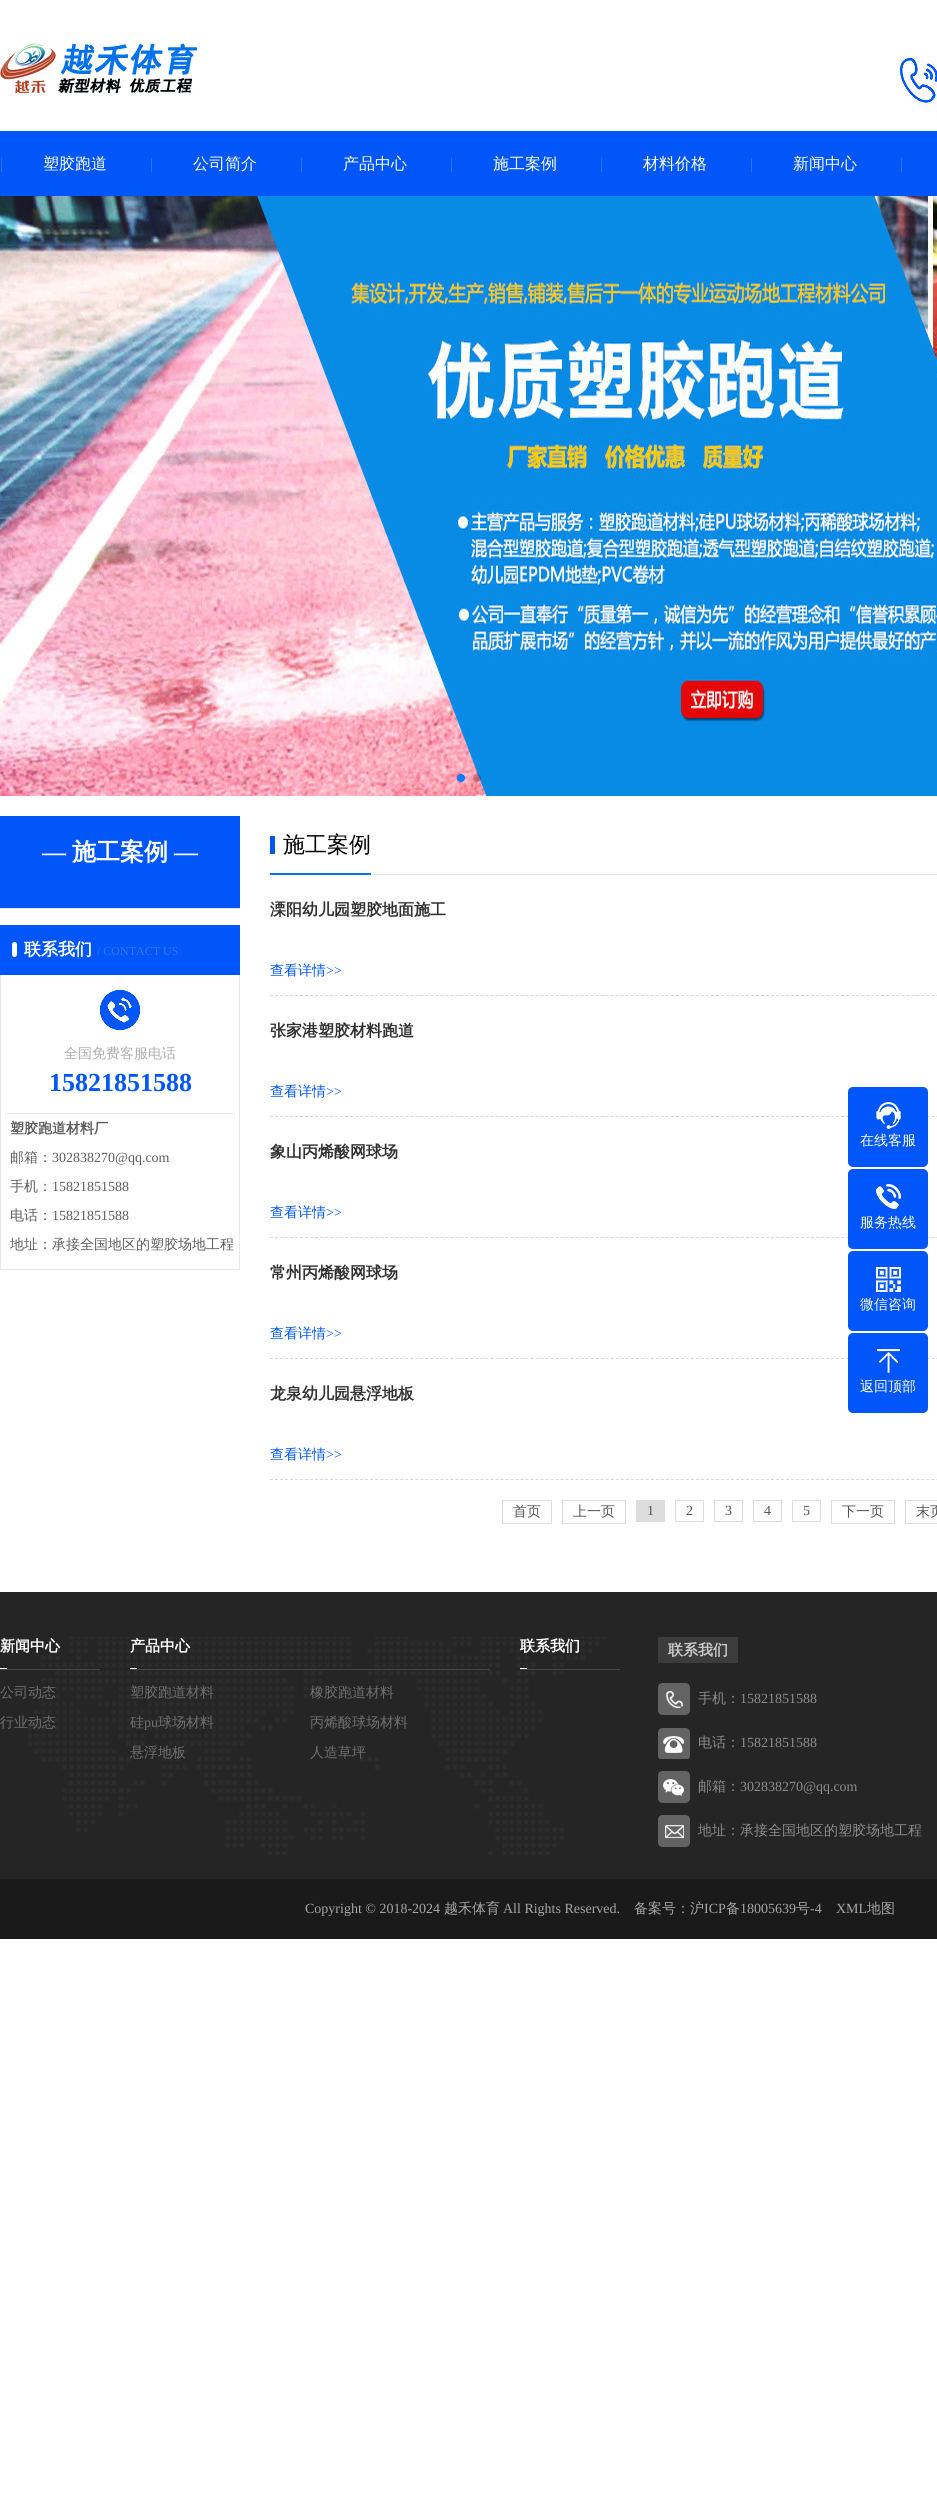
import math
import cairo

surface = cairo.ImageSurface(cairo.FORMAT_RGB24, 937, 2499)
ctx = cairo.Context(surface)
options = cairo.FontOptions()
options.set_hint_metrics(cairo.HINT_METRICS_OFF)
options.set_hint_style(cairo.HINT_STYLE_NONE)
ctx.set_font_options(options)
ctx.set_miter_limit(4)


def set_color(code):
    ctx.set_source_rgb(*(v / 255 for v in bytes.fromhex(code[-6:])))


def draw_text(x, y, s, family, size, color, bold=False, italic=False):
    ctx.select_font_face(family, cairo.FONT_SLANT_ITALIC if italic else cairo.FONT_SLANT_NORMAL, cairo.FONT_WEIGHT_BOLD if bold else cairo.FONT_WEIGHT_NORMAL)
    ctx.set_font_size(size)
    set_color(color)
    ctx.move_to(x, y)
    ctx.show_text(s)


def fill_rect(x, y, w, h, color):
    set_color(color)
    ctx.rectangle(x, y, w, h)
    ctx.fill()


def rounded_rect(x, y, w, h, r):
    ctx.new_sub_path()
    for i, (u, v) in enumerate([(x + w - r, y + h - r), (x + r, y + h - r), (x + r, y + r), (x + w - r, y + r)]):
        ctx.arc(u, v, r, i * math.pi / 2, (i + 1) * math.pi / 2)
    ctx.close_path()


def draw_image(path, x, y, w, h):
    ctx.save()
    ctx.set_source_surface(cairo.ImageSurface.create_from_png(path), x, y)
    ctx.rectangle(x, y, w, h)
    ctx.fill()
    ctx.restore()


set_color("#ffffff")
ctx.paint()
draw_image("assets/img1.png", 0, 43, 198, 50)
draw_image("assets/img2.png", 900, 58, 37, 45)
fill_rect(0, 131, 937, 65, "#0056f9")
draw_text(0, 169, "|", "Liberation Serif", 16, "#3378fa")
draw_text(43, 169, "塑胶跑道", "WenQuanYi Zen Hei Medium", 16, "#ffffff")
draw_text(150, 169, "|", "Liberation Serif", 16, "#3378fa")
draw_text(193, 169, "公司简介", "WenQuanYi Zen Hei Medium", 16, "#ffffff")
draw_text(300, 169, "|", "Liberation Serif", 16, "#3378fa")
draw_text(343, 169, "产品中心", "WenQuanYi Zen Hei Medium", 16, "#ffffff")
draw_text(450, 169, "|", "Liberation Serif", 16, "#3378fa")
draw_text(493, 169, "施工案例", "WenQuanYi Zen Hei Medium", 16, "#ffffff")
draw_text(600, 169, "|", "Liberation Serif", 16, "#3378fa")
draw_text(643, 169, "材料价格", "WenQuanYi Zen Hei Medium", 16, "#ffffff")
draw_text(750, 169, "|", "Liberation Serif", 16, "#3378fa")
draw_text(793, 169, "新闻中心", "WenQuanYi Zen Hei Medium", 16, "#ffffff")
draw_text(900, 169, "|", "Liberation Serif", 16, "#3378fa")
draw_image("assets/img3.png", 0, 196, 937, 600)
set_color("#007aff")
ctx.arc(461, 778, 4, 0, 2 * math.pi)
ctx.fill()
ctx.set_source_rgba(0, 0, 0, 0.2)
ctx.arc(477, 778, 4, 0, 2 * math.pi)
ctx.fill()
fill_rect(0, 816, 240, 92, "#0056f9")
draw_text(42, 860, "—", "Liberation Serif", 24, "#ffffff", bold=True)
draw_text(72, 860, "施工案例", "WenQuanYi Zen Hei", 24, "#ffffff", bold=True)
draw_text(174, 860, "—", "Liberation Serif", 24, "#ffffff", bold=True)
fill_rect(0, 908, 240, 1, "#e9e9e9")
fill_rect(0, 925, 240, 50, "#0056f9")
set_color("#ffffff")
rounded_rect(12, 942, 5, 15, 2.5)
ctx.fill()
draw_text(24, 955, "联系我们", "WenQuanYi Zen Hei", 17, "#ffffff", bold=True)
draw_text(97, 955, "/ CONTACT US", "Liberation Serif", 12, "#3378fa")
fill_rect(239, 975, 1, 295, "#e9e9e9")
fill_rect(0, 1269, 240, 1, "#e9e9e9")
fill_rect(0, 975, 1, 295, "#e9e9e9")
fill_rect(5, 1113, 230, 1, "#e9e9e9")
draw_image("assets/img4.png", 100, 990, 40, 40)
draw_text(64, 1058, "全国免费客服电话", "WenQuanYi Zen Hei Medium", 14, "#aeaeae")
draw_text(49, 1091, "15821851588", "Liberation Serif", 26, "#0056f9", bold=True)
draw_text(10, 1133, "塑胶跑道材料厂", "WenQuanYi Zen Hei", 14, "#5d5d5d", bold=True)
draw_text(10, 1162, "邮箱：", "WenQuanYi Zen Hei Medium", 14, "#5d5d5d")
draw_text(52, 1162, "302838270@qq.com", "Liberation Serif", 14, "#5d5d5d")
draw_text(10, 1191, "手机：", "WenQuanYi Zen Hei Medium", 14, "#5d5d5d")
draw_text(52, 1191, "15821851588", "Liberation Serif", 14, "#5d5d5d")
draw_text(10, 1220, "电话：", "WenQuanYi Zen Hei Medium", 14, "#5d5d5d")
draw_text(52, 1220, "15821851588", "Liberation Serif", 14, "#5d5d5d")
draw_text(10, 1249, "地址：承接全国地区的塑胶场地工程", "WenQuanYi Zen Hei Medium", 14, "#5d5d5d")
fill_rect(371, 874, 566, 1, "#e5e5e5")
fill_rect(270, 873, 101, 2, "#0075e3")
fill_rect(270, 836, 5, 18, "#0056f9")
draw_text(283, 852, "施工案例", "WenQuanYi Zen Hei Medium", 22, "#000000")
ctx.new_path()
ctx.move_to(270, 995.5)
ctx.line_to(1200, 995.5)
set_color("#d8d8d8")
ctx.set_line_width(1)
ctx.set_dash([3, 2.01])
ctx.stroke()
draw_text(270, 915, "溧阳幼儿园塑胶地面施工", "WenQuanYi Zen Hei", 16, "#303030", bold=True)
draw_text(270, 975, "查看详情", "WenQuanYi Zen Hei Medium", 14, "#0056f9")
draw_text(326, 975, ">>", "Liberation Serif", 14, "#0056f9")
ctx.new_path()
ctx.move_to(270, 1116.5)
ctx.line_to(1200, 1116.5)
set_color("#d8d8d8")
ctx.stroke()
draw_text(270, 1036, "张家港塑胶材料跑道", "WenQuanYi Zen Hei", 16, "#303030", bold=True)
draw_text(270, 1096, "查看详情", "WenQuanYi Zen Hei Medium", 14, "#0056f9")
draw_text(326, 1096, ">>", "Liberation Serif", 14, "#0056f9")
ctx.new_path()
ctx.move_to(270, 1237.5)
ctx.line_to(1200, 1237.5)
set_color("#d8d8d8")
ctx.stroke()
draw_text(270, 1157, "象山丙烯酸网球场", "WenQuanYi Zen Hei", 16, "#303030", bold=True)
draw_text(270, 1217, "查看详情", "WenQuanYi Zen Hei Medium", 14, "#0056f9")
draw_text(326, 1217, ">>", "Liberation Serif", 14, "#0056f9")
ctx.new_path()
ctx.move_to(270, 1358.5)
ctx.line_to(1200, 1358.5)
set_color("#d8d8d8")
ctx.stroke()
draw_text(270, 1278, "常州丙烯酸网球场", "WenQuanYi Zen Hei", 16, "#303030", bold=True)
draw_text(270, 1338, "查看详情", "WenQuanYi Zen Hei Medium", 14, "#0056f9")
draw_text(326, 1338, ">>", "Liberation Serif", 14, "#0056f9")
ctx.new_path()
ctx.move_to(270, 1479.5)
ctx.line_to(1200, 1479.5)
set_color("#d8d8d8")
ctx.stroke()
draw_text(270, 1399, "龙泉幼儿园悬浮地板", "WenQuanYi Zen Hei", 16, "#303030", bold=True)
draw_text(270, 1459, "查看详情", "WenQuanYi Zen Hei Medium", 14, "#0056f9")
draw_text(326, 1459, ">>", "Liberation Serif", 14, "#0056f9")
ctx.rectangle(502.5, 1500.5, 49, 23)
set_color("#dddddd")
ctx.set_dash([])
ctx.stroke()
draw_text(513, 1516, "首页", "WenQuanYi Zen Hei Medium", 14, "#555555")
ctx.rectangle(562.5, 1500.5, 63, 23)
set_color("#dddddd")
ctx.stroke()
draw_text(573, 1516, "上一页", "WenQuanYi Zen Hei Medium", 14, "#555555")
fill_rect(636, 1500, 29, 22, "#dddddd")
draw_text(647, 1515, "1", "Liberation Serif", 14, "#555555")
ctx.rectangle(675.5, 1500.5, 28, 21)
set_color("#dddddd")
ctx.stroke()
draw_text(686, 1515, "2", "Liberation Serif", 14, "#555555")
ctx.rectangle(714.5, 1500.5, 28, 21)
set_color("#dddddd")
ctx.stroke()
draw_text(725, 1515, "3", "Liberation Serif", 14, "#555555")
ctx.rectangle(753.5, 1500.5, 28, 21)
set_color("#dddddd")
ctx.stroke()
draw_text(764, 1515, "4", "Liberation Serif", 14, "#555555")
ctx.rectangle(792.5, 1500.5, 28, 21)
set_color("#dddddd")
ctx.stroke()
draw_text(803, 1515, "5", "Liberation Serif", 14, "#555555")
ctx.rectangle(831.5, 1500.5, 63, 23)
set_color("#dddddd")
ctx.stroke()
draw_text(842, 1516, "下一页", "WenQuanYi Zen Hei Medium", 14, "#555555")
ctx.rectangle(905.5, 1500.5, 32, 23)
set_color("#dddddd")
ctx.stroke()
draw_text(916, 1516, "末页", "WenQuanYi Zen Hei Medium", 14, "#555555")
set_color("#0056f9")
rounded_rect(848, 1087, 80, 80, 5)
ctx.fill()
draw_image("assets/img5.png", 876, 1102, 25, 27)
draw_text(860, 1145, "在线客服", "WenQuanYi Zen Hei Medium", 14, "#ffffff")
set_color("#0056f9")
rounded_rect(848, 1169, 80, 80, 5)
ctx.fill()
draw_image("assets/img6.png", 876, 1184, 25, 25)
draw_text(860, 1227, "服务热线", "WenQuanYi Zen Hei Medium", 14, "#ffffff")
set_color("#0056f9")
rounded_rect(848, 1251, 80, 80, 5)
ctx.fill()
draw_image("assets/img7.png", 876, 1267, 25, 25)
draw_text(860, 1309, "微信咨询", "WenQuanYi Zen Hei Medium", 14, "#ffffff")
set_color("#0056f9")
rounded_rect(848, 1333, 80, 80, 5)
ctx.fill()
draw_image("assets/img8.png", 877, 1349, 23, 24)
draw_text(860, 1391, "返回顶部", "WenQuanYi Zen Hei Medium", 14, "#ffffff")
fill_rect(0, 1592, 937, 287, "#252525")
draw_image("assets/img9.png", 28, 1637, 578, 218)
fill_rect(0, 1669, 100, 1, "#464646")
draw_text(0, 1651, "新闻中心", "WenQuanYi Zen Hei", 15, "#ffffff", bold=True)
fill_rect(0, 1668, 7, 1, "#ffffff")
draw_text(0, 1697, "公司动态", "WenQuanYi Zen Hei Medium", 14, "#6f6f6f")
draw_text(0, 1727, "行业动态", "WenQuanYi Zen Hei Medium", 14, "#6f6f6f")
fill_rect(130, 1669, 360, 1, "#464646")
draw_text(130, 1651, "产品中心", "WenQuanYi Zen Hei", 15, "#ffffff", bold=True)
fill_rect(130, 1668, 7, 1, "#ffffff")
draw_text(130, 1697, "塑胶跑道材料", "WenQuanYi Zen Hei Medium", 14, "#6f6f6f")
draw_text(310, 1697, "橡胶跑道材料", "WenQuanYi Zen Hei Medium", 14, "#6f6f6f")
draw_text(130, 1727, "硅", "WenQuanYi Zen Hei Medium", 14, "#6f6f6f")
draw_text(144, 1727, "pu", "Liberation Serif", 14, "#6f6f6f")
draw_text(158, 1727, "球场材料", "WenQuanYi Zen Hei Medium", 14, "#6f6f6f")
draw_text(310, 1727, "丙烯酸球场材料", "WenQuanYi Zen Hei Medium", 14, "#6f6f6f")
draw_text(130, 1757, "悬浮地板", "WenQuanYi Zen Hei Medium", 14, "#6f6f6f")
draw_text(310, 1757, "人造草坪", "WenQuanYi Zen Hei Medium", 14, "#6f6f6f")
fill_rect(520, 1669, 100, 1, "#464646")
draw_text(520, 1651, "联系我们", "WenQuanYi Zen Hei", 15, "#ffffff", bold=True)
fill_rect(520, 1668, 7, 1, "#ffffff")
fill_rect(658, 1637, 80, 26, "#3c3c3c")
draw_text(668, 1655, "联系我们", "WenQuanYi Zen Hei", 15, "#cbcbcb", bold=True)
draw_image("assets/img10.png", 658, 1683, 32, 32)
draw_text(698, 1703, "手机：", "WenQuanYi Zen Hei Medium", 14, "#8c8c8c")
draw_text(740, 1703, "15821851588", "Liberation Serif", 14, "#8c8c8c")
draw_image("assets/img11.png", 658, 1728, 32, 31)
draw_text(698, 1747, "电话：", "WenQuanYi Zen Hei Medium", 14, "#8c8c8c")
draw_text(740, 1747, "15821851588", "Liberation Serif", 14, "#8c8c8c")
draw_image("assets/img12.png", 658, 1771, 32, 32)
draw_text(698, 1791, "邮箱：", "WenQuanYi Zen Hei Medium", 14, "#8c8c8c")
draw_text(740, 1791, "302838270@qq.com", "Liberation Serif", 14, "#8c8c8c")
draw_image("assets/img13.png", 658, 1815, 32, 32)
draw_text(698, 1835, "地址：承接全国地区的塑胶场地工程", "WenQuanYi Zen Hei Medium", 14, "#8c8c8c")
fill_rect(0, 1879, 937, 60, "#1a1a1a")
draw_text(305, 1913, "Copyright © 2018-2024", "Liberation Serif", 14, "#a6a6a6")
draw_text(444, 1913, "越禾体育", "WenQuanYi Zen Hei Medium", 14, "#a6a6a6")
draw_text(503, 1913, "All Rights Reserved.", "Liberation Serif", 14, "#a6a6a6")
draw_text(634, 1913, "备案号：沪", "WenQuanYi Zen Hei Medium", 14, "#a6a6a6")
draw_text(704, 1913, "ICP", "Liberation Serif", 14, "#a6a6a6")
draw_text(726, 1913, "备", "WenQuanYi Zen Hei Medium", 14, "#a6a6a6")
draw_text(740, 1913, "18005639", "Liberation Serif", 14, "#a6a6a6")
draw_text(796, 1913, "号", "WenQuanYi Zen Hei Medium", 14, "#a6a6a6")
draw_text(810, 1913, "-4", "Liberation Serif", 14, "#a6a6a6")
draw_text(836, 1913, "XML", "Liberation Serif", 14, "#a6a6a6")
draw_text(867, 1913, "地图", "WenQuanYi Zen Hei Medium", 14, "#a6a6a6")
surface.write_to_png("output.png")
